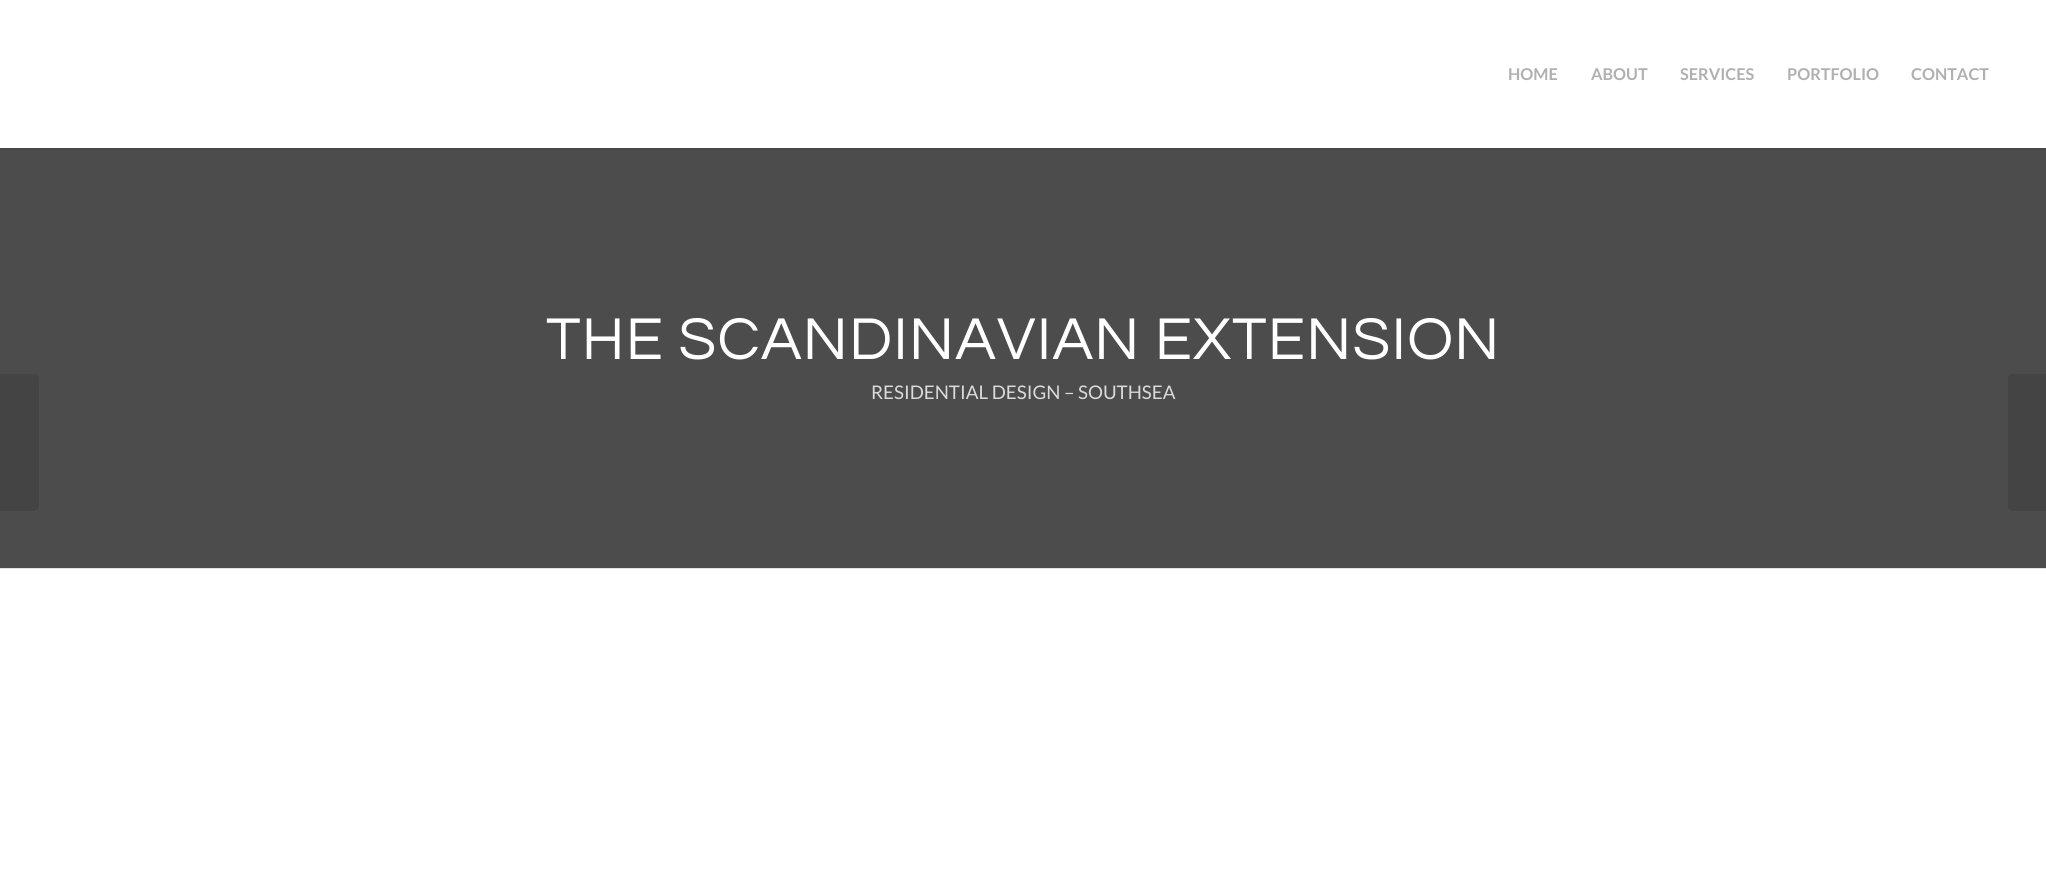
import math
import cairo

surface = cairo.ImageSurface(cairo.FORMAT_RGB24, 2046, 883)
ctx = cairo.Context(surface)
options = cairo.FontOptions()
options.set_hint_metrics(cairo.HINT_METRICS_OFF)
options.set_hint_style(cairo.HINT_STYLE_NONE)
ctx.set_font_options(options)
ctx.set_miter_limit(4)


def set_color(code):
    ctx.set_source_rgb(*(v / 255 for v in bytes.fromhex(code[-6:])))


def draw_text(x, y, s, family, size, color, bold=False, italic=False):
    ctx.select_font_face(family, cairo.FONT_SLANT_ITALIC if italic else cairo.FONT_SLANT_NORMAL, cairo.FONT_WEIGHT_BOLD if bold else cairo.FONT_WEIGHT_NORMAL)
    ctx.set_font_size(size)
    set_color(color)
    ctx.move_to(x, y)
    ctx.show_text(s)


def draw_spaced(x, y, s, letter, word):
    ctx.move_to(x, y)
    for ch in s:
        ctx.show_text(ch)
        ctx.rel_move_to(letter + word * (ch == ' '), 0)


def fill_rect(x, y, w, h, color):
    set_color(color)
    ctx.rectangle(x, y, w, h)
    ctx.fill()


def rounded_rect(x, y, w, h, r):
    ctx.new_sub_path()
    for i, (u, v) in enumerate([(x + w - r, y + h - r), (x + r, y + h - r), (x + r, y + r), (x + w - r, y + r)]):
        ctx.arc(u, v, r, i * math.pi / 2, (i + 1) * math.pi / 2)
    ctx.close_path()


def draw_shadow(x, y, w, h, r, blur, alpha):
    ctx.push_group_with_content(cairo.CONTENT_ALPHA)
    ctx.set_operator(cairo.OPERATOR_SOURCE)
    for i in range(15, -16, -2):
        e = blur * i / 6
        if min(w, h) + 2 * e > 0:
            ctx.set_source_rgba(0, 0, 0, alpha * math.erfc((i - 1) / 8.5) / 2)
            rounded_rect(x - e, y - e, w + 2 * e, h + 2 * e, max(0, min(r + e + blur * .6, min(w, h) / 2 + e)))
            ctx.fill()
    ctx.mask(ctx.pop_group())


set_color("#ffffff")
ctx.paint()
fill_rect(0, 148, 2046, 420, "#4c4c4c")
set_color("#000000")
draw_shadow(-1, -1, 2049, 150, 0, 1, 0.1)
fill_rect(0, 0, 2046, 148, "#ffffff")
draw_text(1508, 80, "HOME", "Lato", 16.25, "#b0b0b0", bold=True)
draw_text(1591, 80, "ABOUT", "Lato", 16.25, "#b0b0b0", bold=True)
draw_text(1680, 80, "SERVICES", "Lato", 16.25, "#b0b0b0", bold=True)
draw_text(1787, 80, "PORTFOLIO", "Lato", 16.25, "#b0b0b0", bold=True)
draw_text(1911, 80, "CONTACT", "Lato", 16.25, "#b0b0b0", bold=True)
ctx.select_font_face("Questrial")
ctx.set_font_size(61.25)
set_color("#ffffff")
draw_spaced(546, 359, "THE SCANDINAVIAN EXTENSION", 1.25, 0)
draw_text(871, 399, "RESIDENTIAL DESIGN – SOUTHSEA", "Lato", 18.75, "#dbdbdb")
fill_rect(0, 568, 2046, 1, "#e1e1e1")
set_color("#444444")
ctx.new_path()
ctx.move_to(0, 374)
ctx.line_to(34, 374)
ctx.curve_to(37, 374, 39, 376, 39, 379)
ctx.line_to(39, 506)
ctx.curve_to(39, 509, 37, 511, 34, 511)
ctx.line_to(0, 511)
ctx.close_path()
ctx.fill()
ctx.new_path()
ctx.move_to(2013, 374)
ctx.line_to(2046, 374)
ctx.line_to(2046, 511)
ctx.line_to(2013, 511)
ctx.curve_to(2010, 511, 2008, 509, 2008, 506)
ctx.line_to(2008, 379)
ctx.curve_to(2008, 376, 2010, 374, 2013, 374)
ctx.close_path()
ctx.fill()
surface.write_to_png("output.png")
